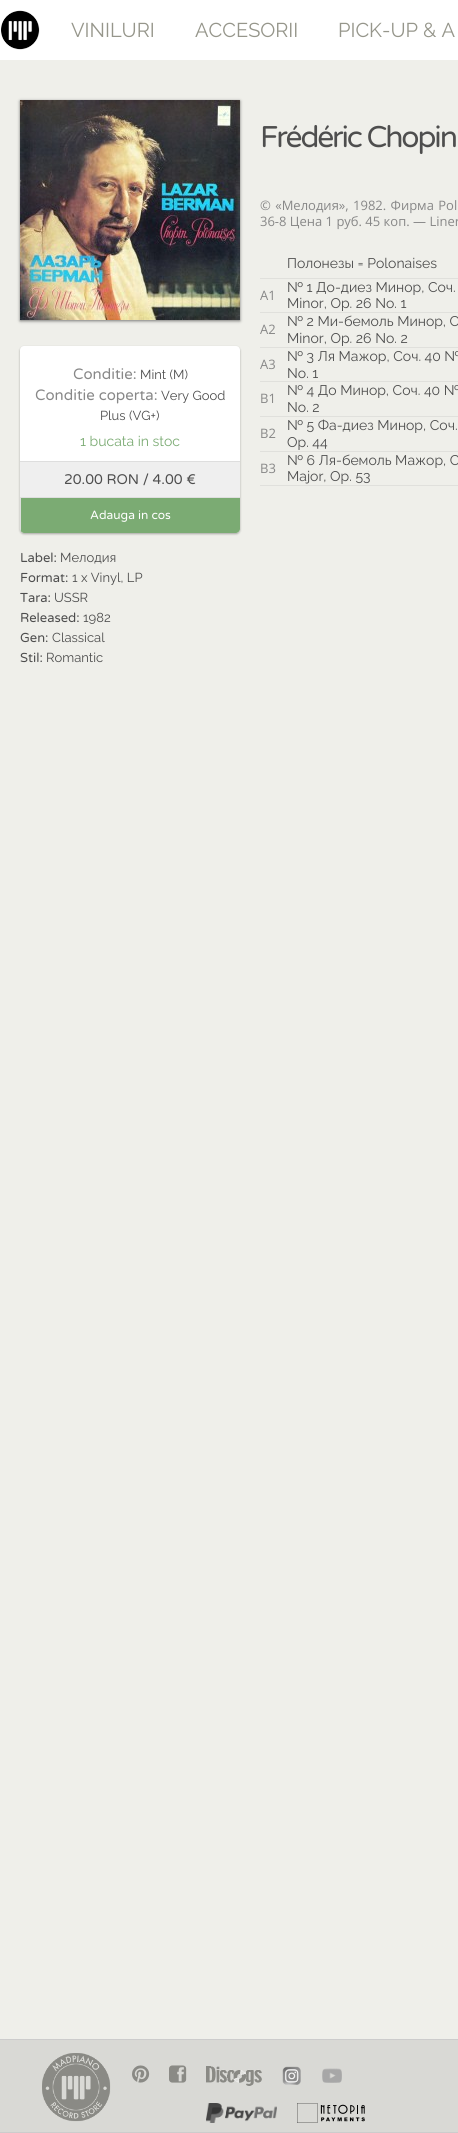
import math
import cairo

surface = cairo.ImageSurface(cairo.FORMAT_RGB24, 458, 2133)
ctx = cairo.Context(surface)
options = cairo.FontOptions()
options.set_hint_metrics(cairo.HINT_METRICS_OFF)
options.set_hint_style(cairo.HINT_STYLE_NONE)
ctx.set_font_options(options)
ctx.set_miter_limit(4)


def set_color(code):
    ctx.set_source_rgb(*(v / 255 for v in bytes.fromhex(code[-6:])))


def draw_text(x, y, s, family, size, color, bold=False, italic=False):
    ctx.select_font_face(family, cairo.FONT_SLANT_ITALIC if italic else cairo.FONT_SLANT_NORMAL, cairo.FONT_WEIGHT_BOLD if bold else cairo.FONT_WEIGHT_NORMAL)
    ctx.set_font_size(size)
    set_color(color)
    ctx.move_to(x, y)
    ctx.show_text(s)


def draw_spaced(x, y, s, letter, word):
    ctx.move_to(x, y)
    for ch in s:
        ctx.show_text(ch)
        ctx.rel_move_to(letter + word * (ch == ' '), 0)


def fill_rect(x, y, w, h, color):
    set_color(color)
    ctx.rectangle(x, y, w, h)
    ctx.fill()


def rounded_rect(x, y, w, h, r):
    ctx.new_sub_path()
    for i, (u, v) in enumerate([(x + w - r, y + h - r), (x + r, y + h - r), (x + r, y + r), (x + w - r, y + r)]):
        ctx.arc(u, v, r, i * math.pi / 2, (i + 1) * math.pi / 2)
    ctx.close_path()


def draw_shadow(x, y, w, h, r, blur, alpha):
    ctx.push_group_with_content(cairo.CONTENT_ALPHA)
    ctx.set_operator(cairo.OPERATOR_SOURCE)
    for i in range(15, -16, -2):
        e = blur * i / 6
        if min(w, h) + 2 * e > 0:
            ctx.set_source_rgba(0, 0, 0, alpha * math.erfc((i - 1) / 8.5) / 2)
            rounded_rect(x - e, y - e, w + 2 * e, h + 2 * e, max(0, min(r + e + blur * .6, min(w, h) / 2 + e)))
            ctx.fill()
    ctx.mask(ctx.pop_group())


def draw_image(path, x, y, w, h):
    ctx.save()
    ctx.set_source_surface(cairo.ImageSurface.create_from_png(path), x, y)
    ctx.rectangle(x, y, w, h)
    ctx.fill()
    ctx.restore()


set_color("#efefea")
ctx.paint()
fill_rect(0, 0, 458, 60, "#ffffff")
draw_image("assets/img1.png", 1, 10, 39, 40)
draw_text(71, 37, "VINILURI", "Raleway", 20, "#96968b")
draw_text(195, 37, "ACCESORII", "Raleway", 20, "#96968b")
draw_text(338, 37, "PICK-UP & A", "Raleway", 20, "#96968b")
ctx.select_font_face("Varela Round")
ctx.set_font_size(30)
set_color("#4e4e4e")
draw_spaced(260, 147, "Frédéric Chopin", -2.1, 0)
ctx.select_font_face("Open Sans")
ctx.set_font_size(13)
set_color("#888888")
draw_spaced(260, 210, "© «Мелодия», 1982. Фирма Pol", 0, 1)
draw_text(260, 226, "36-8 Цена 1 руб. 45 коп. — Liner", "Open Sans", 13, "#888888")
fill_rect(260, 278, 198, 1, "#e0e0dc")
draw_text(287, 268, "Полонезы = Polonaises", "Raleway", 14, "#4e4e4e")
draw_text(260, 300, "A1", "Open Sans", 13, "#888888")
fill_rect(260, 312, 198, 1, "#e0e0dc")
draw_text(287, 292, "№ 1 До-диез Минор, Соч.", "Raleway", 14, "#4e4e4e")
draw_text(287, 308, "Minor, Op. 26 No. 1", "Raleway", 14, "#4e4e4e")
draw_text(260, 334, "A2", "Open Sans", 13, "#888888")
fill_rect(260, 347, 198, 1, "#e0e0dc")
draw_text(287, 326, "№ 2 Ми-бемоль Минор, С", "Raleway", 14, "#4e4e4e")
draw_text(287, 343, "Minor, Op. 26 No. 2", "Raleway", 14, "#4e4e4e")
draw_text(260, 369, "A3", "Open Sans", 13, "#888888")
fill_rect(260, 381, 198, 1, "#e0e0dc")
draw_text(287, 361, "№ 3 Ля Мажор, Соч. 40 №", "Raleway", 14, "#4e4e4e")
draw_text(287, 378, "No. 1", "Raleway", 14, "#4e4e4e")
draw_text(260, 403, "B1", "Open Sans", 13, "#888888")
fill_rect(260, 416, 198, 1, "#e0e0dc")
draw_text(287, 395, "№ 4 До Минор, Соч. 40 №", "Raleway", 14, "#4e4e4e")
draw_text(287, 412, "No. 2", "Raleway", 14, "#4e4e4e")
draw_text(260, 438, "B2", "Open Sans", 13, "#888888")
fill_rect(260, 451, 198, 1, "#e0e0dc")
draw_text(287, 430, "№ 5 Фа-диез Минор, Соч.", "Raleway", 14, "#4e4e4e")
draw_text(287, 447, "Op. 44", "Raleway", 14, "#4e4e4e")
draw_text(260, 473, "B3", "Open Sans", 13, "#888888")
fill_rect(260, 485, 198, 1, "#e0e0dc")
draw_text(287, 465, "№ 6 Ля-бемоль Мажор, С", "Raleway", 14, "#4e4e4e")
draw_text(287, 481, "Major, Op. 53", "Raleway", 14, "#4e4e4e")
set_color("#000000")
draw_shadow(20, 101, 220, 220, 0, 1.5, 0.5)
draw_image("assets/img2.png", 20, 100, 220, 220)
draw_shadow(20, 347, 220, 187, 4, 1, 0.3)
set_color("#ffffff")
rounded_rect(20, 346, 220, 187, 4)
ctx.fill()
draw_text(73, 379, "Conditie:", "Varela Round", 15, "#888888")
draw_text(140, 379, "Mint (M)", "Raleway", 13, "#4e4e4e")
draw_text(35, 400, "Conditie coperta:", "Varela Round", 15, "#888888")
draw_text(161, 400, "Very Good", "Raleway", 13, "#4e4e4e")
draw_text(100, 420, "Plus (VG+)", "Raleway", 13, "#4e4e4e")
draw_text(80, 446, "1 bucata in stoc", "Raleway", 14, "#7bab73")
fill_rect(20, 462, 220, 35, "#efefef")
fill_rect(20, 461, 220, 1, "#dedede")
draw_text(64, 484, "20.00 RON / 4.00 €", "Varela Round", 14, "#4e4e4e")
fill_rect(20, 497, 220, 1, "#dedede")
set_color("#7bab73")
ctx.new_path()
ctx.move_to(20, 498)
ctx.line_to(240, 498)
ctx.line_to(240, 529)
ctx.curve_to(240, 531, 238, 533, 236, 533)
ctx.line_to(24, 533)
ctx.curve_to(22, 533, 20, 531, 20, 529)
ctx.close_path()
ctx.fill()
ctx.save()
rounded_rect(20, 346, 220, 187, 4)
ctx.clip()
fill_rect(20, 498, 1, 35, "#dedede")
ctx.restore()
draw_text(90, 519, "Adauga in cos", "Varela Round", 12, "#ffffff")
draw_text(20, 562, "Label:", "Varela Round", 13, "#4e4e4e")
draw_text(60, 562, "Мелодия", "Raleway", 13, "#4e4e4e")
draw_text(20, 582, "Format:", "Varela Round", 13, "#4e4e4e")
draw_text(72, 582, "1 x Vinyl, LP", "Raleway", 13, "#4e4e4e")
draw_text(20, 602, "Tara:", "Varela Round", 13, "#4e4e4e")
draw_text(54, 602, "USSR", "Raleway", 13, "#4e4e4e")
draw_text(20, 622, "Released:", "Varela Round", 13, "#4e4e4e")
draw_text(83, 622, "1982", "Raleway", 13, "#4e4e4e")
draw_text(20, 642, "Gen:", "Varela Round", 13, "#4e4e4e")
draw_text(52, 642, "Classical", "Raleway", 13, "#4e4e4e")
draw_text(20, 662, "Stil:", "Varela Round", 13, "#4e4e4e")
draw_text(46, 662, "Romantic", "Raleway", 13, "#4e4e4e")
fill_rect(0, 2040, 458, 92, "#d9d9d5")
fill_rect(0, 2039, 458, 1, "#cccccc")
fill_rect(0, 2132, 458, 1, "#cccccc")
draw_image("assets/img3.png", 42, 2053, 69, 69)
draw_image("assets/img4.png", 132, 2065, 18, 18)
draw_image("assets/img5.png", 169, 2065, 18, 18)
draw_image("assets/img6.png", 206, 2066, 56, 20)
draw_image("assets/img7.png", 282, 2066, 19, 19)
draw_image("assets/img8.png", 322, 2068, 20, 15)
draw_image("assets/img9.png", 206, 2103, 71, 20)
draw_image("assets/img10.png", 297, 2103, 68, 20)
surface.write_to_png("output.png")
